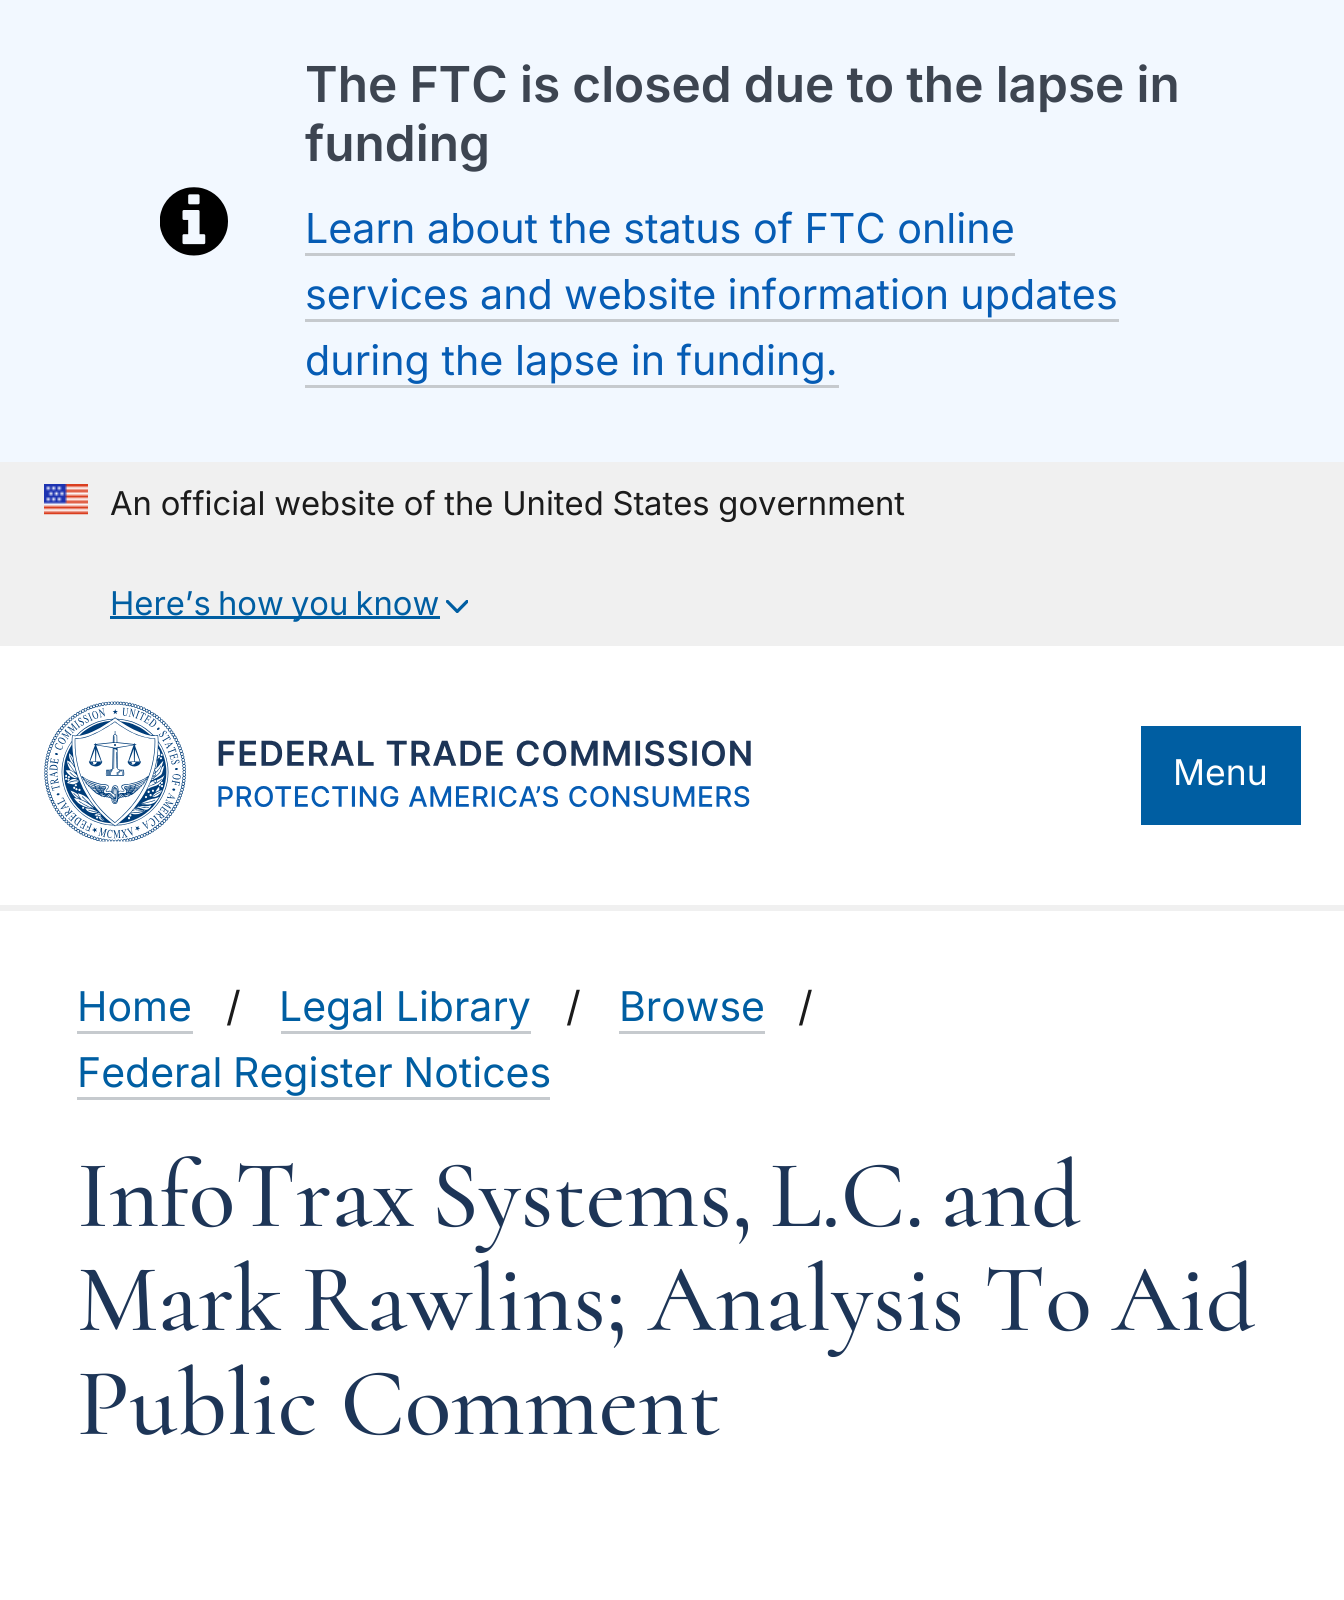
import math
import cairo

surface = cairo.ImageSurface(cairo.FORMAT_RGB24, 1344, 1600)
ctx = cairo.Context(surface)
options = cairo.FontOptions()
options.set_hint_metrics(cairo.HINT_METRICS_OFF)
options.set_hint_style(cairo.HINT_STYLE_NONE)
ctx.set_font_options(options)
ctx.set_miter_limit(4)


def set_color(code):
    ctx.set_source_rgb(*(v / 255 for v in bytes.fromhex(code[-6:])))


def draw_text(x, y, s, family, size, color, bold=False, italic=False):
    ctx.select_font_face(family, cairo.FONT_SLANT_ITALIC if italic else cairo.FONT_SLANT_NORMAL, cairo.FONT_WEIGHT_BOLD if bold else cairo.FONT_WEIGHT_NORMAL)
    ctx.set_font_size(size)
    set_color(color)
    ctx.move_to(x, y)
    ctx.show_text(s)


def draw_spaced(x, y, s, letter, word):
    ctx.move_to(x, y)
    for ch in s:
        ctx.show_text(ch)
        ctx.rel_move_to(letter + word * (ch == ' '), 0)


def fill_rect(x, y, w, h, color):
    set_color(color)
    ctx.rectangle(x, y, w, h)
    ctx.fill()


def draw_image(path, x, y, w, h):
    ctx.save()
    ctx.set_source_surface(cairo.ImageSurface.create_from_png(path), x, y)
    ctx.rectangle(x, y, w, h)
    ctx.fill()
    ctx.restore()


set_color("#ffffff")
ctx.paint()
fill_rect(0, 0, 1344, 462, "#f2f8ff")
draw_image("assets/img1.png", 160, 187, 68, 69)
ctx.select_font_face("Inter SemiBold")
ctx.set_font_size(49.5)
set_color("#3d4551")
draw_spaced(305, 102, "The FTC is closed due to the lapse in", 0, -0.25)
draw_text(305, 161, "funding", "Inter SemiBold", 49.5, "#3d4551")
draw_text(305, 243, "Learn about the status of FTC online", "Inter", 41.25, "#065cb4")
fill_rect(305, 253, 710, 3, "#c6cace")
set_color("#065cb4")
draw_spaced(305, 309, "services and website information updates", 0, -0.5)
fill_rect(305, 319, 814, 3, "#c6cace")
draw_text(305, 375, "during the lapse in funding.", "Inter", 41.25, "#065cb4")
fill_rect(305, 385, 534, 3, "#c6cace")
fill_rect(0, 462, 1344, 184, "#f0f0f0")
draw_image("assets/img2.png", 44, 484, 44, 31)
ctx.set_font_size(32.75)
set_color("#1b1b1b")
draw_spaced(110, 515, "An official website of the United States government", 0, -0.5)
fill_rect(110, 616, 330, 3, "#005ea2")
draw_spaced(110, 615, "Here’s how you know", 0, -2)
draw_image("assets/img3.png", 446, 600, 22, 13)
draw_image("assets/img4.png", 44, 701, 707, 141)
fill_rect(1141, 726, 160, 99, "#005ea2")
draw_text(1173, 785, "Menu", "Inter", 35.5, "#ffffff")
fill_rect(0, 905, 1344, 6, "#f0f0f0")
draw_text(77, 1021, "Home", "Inter", 41, "#005ea2")
fill_rect(77, 1031, 116, 3, "#c6cace")
draw_text(226, 1021, "/", "Inter", 41, "#1b1b1b")
draw_text(279, 1021, "Legal Library", "Inter", 41, "#005ea2")
fill_rect(281, 1031, 250, 3, "#c6cace")
draw_text(566, 1021, "/", "Inter", 41, "#1b1b1b")
draw_text(619, 1021, "Browse", "Inter", 41, "#005ea2")
fill_rect(619, 1031, 146, 3, "#c6cace")
draw_text(798, 1021, "/", "Inter", 41, "#1b1b1b")
set_color("#005ea2")
draw_spaced(77, 1087, "Federal Register Notices", 0, -1)
fill_rect(77, 1097, 473, 3, "#c6cace")
ctx.select_font_face("Cormorant Medium")
ctx.set_font_size(96.25)
set_color("#1d3557")
draw_spaced(77, 1226, "InfoTrax Systems, L.C. and", 0, -6)
draw_spaced(77, 1330, "Mark Rawlins; Analysis To Aid", 0, -2.5)
draw_text(77, 1434, "Public Comment", "Cormorant Medium", 96.25, "#1d3557")
surface.write_to_png("output.png")
